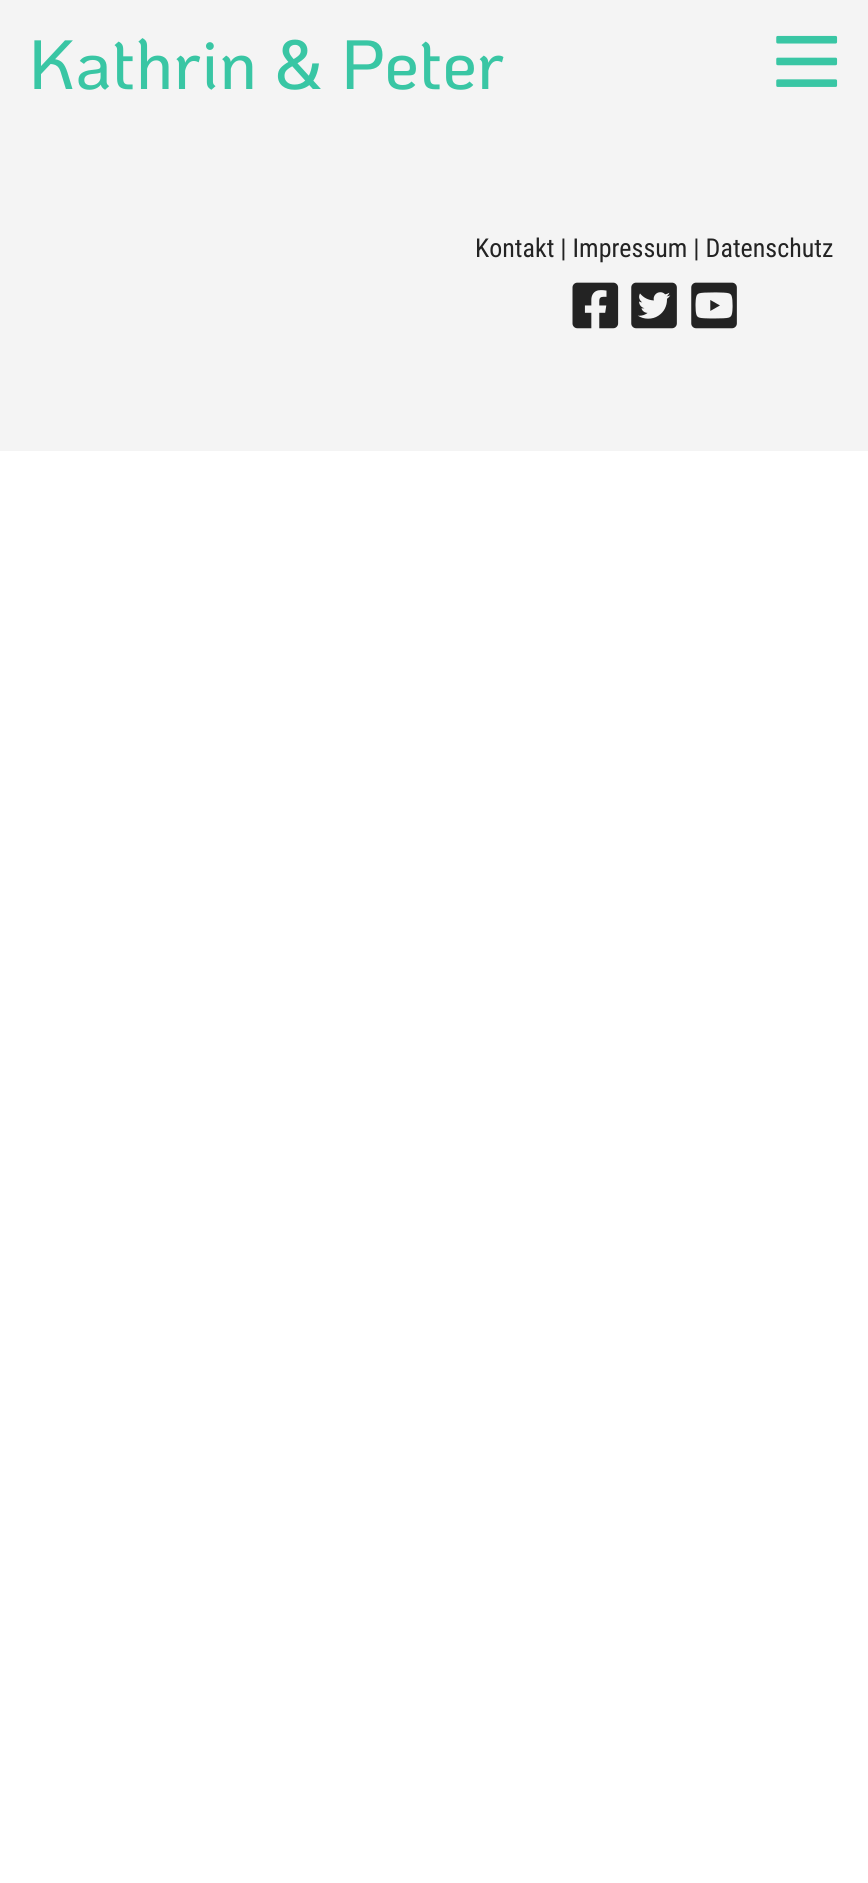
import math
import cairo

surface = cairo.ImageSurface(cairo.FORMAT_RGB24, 868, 1883)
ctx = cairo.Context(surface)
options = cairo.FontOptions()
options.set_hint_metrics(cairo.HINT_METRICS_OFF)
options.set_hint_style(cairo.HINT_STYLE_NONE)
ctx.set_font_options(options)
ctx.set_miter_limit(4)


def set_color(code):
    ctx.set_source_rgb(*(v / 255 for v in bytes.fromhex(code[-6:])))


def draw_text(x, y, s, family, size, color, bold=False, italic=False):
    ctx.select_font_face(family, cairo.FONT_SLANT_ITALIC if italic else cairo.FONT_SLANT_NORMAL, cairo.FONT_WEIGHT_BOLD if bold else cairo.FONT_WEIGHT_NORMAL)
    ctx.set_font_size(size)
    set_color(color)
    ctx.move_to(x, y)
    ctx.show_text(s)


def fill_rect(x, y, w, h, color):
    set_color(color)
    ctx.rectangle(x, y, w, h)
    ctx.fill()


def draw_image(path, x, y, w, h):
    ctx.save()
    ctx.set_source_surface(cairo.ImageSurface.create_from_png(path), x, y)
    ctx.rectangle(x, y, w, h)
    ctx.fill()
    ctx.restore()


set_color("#ffffff")
ctx.paint()
fill_rect(0, 0, 868, 451, "#f4f4f4")
draw_text(28, 89, "Kathrin & Peter", "KoHo Medium", 69.5, "#39c6a4")
draw_image("assets/img1.png", 776, 35, 62, 52)
draw_text(475, 257, "Kontakt | Impressum | Datenschutz", "Roboto Condensed", 26, "#232323")
draw_image("assets/img2.png", 572, 282, 47, 47)
draw_image("assets/img3.png", 631, 282, 46, 47)
draw_image("assets/img4.png", 691, 282, 46, 47)
surface.write_to_png("output.png")
